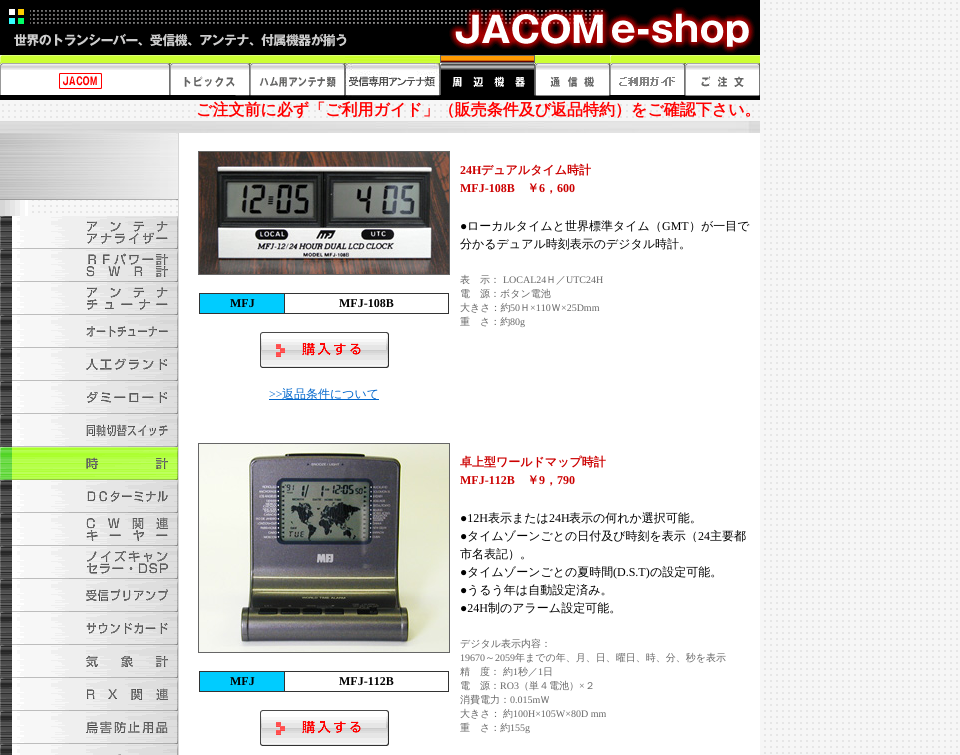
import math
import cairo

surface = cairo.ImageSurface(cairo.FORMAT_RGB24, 960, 755)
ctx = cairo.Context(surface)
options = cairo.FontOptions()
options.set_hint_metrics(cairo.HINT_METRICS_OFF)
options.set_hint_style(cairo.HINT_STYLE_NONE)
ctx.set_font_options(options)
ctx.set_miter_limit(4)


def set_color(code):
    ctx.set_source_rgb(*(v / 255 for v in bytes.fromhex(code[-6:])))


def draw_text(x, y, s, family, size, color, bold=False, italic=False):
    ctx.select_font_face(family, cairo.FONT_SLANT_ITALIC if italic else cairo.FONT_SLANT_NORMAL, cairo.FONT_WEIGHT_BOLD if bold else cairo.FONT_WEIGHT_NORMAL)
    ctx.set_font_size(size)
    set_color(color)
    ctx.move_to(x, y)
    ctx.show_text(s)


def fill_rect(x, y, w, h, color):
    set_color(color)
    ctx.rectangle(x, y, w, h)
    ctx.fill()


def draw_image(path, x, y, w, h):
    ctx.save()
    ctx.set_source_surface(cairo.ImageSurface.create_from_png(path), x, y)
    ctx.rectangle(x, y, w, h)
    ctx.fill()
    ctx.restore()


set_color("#ffffff")
ctx.paint()
draw_image("assets/img1.png", 0, 0, 960, 755)
draw_image("assets/img2.png", 0, 0, 760, 55)
draw_image("assets/img3.png", 0, 55, 170, 45)
draw_image("assets/img4.png", 170, 55, 80, 45)
draw_image("assets/img5.png", 250, 55, 95, 45)
draw_image("assets/img6.png", 345, 55, 95, 45)
draw_image("assets/img7.png", 440, 55, 95, 45)
draw_image("assets/img8.png", 535, 55, 75, 45)
draw_image("assets/img9.png", 610, 55, 75, 45)
draw_image("assets/img10.png", 685, 55, 75, 45)
draw_text(196, 115, "ご注文前に必ず「ご利用ガイド」（販売条件及び返品特約）をご確認下さい。", "WenQuanYi Zen Hei", 16, "#ff0000", bold=True)
draw_image("assets/img11.png", 0, 121, 760, 12)
draw_image("assets/img12.png", 0, 133, 179, 622)
draw_image("assets/img13.png", 0, 133, 178, 67)
draw_image("assets/img14.png", 0, 216, 178, 33)
draw_image("assets/img15.png", 0, 249, 178, 33)
draw_image("assets/img16.png", 0, 282, 178, 33)
draw_image("assets/img17.png", 0, 315, 178, 33)
draw_image("assets/img18.png", 0, 348, 178, 33)
draw_image("assets/img19.png", 0, 381, 178, 33)
draw_image("assets/img20.png", 0, 414, 178, 33)
draw_image("assets/img21.png", 0, 447, 178, 33)
draw_image("assets/img22.png", 0, 480, 178, 33)
draw_image("assets/img23.png", 0, 513, 178, 33)
draw_image("assets/img24.png", 0, 546, 178, 33)
draw_image("assets/img25.png", 0, 579, 178, 33)
draw_image("assets/img26.png", 0, 612, 178, 33)
draw_image("assets/img27.png", 0, 645, 178, 33)
draw_image("assets/img28.png", 0, 678, 178, 33)
draw_image("assets/img29.png", 0, 711, 178, 33)
draw_image("assets/img30.png", 0, 744, 178, 11)
fill_rect(179, 133, 581, 622, "#ffffff")
draw_text(460, 174, "24H", "Liberation Serif", 12, "#cc0000", bold=True)
draw_text(481, 174, "デュアルタイム時計", "WenQuanYi Zen Hei", 12, "#cc0000", bold=True)
draw_text(460, 192, "MFJ-108B", "Liberation Serif", 12, "#cc0000", bold=True)
draw_text(527, 192, "￥", "WenQuanYi Zen Hei", 12, "#cc0000", bold=True)
draw_text(539, 192, "6", "Liberation Serif", 12, "#cc0000", bold=True)
draw_text(545, 192, "，", "WenQuanYi Zen Hei", 12, "#cc0000", bold=True)
draw_text(557, 192, "600", "Liberation Serif", 12, "#cc0000", bold=True)
draw_text(460, 230, "●", "Liberation Serif", 12, "#000000")
draw_text(467, 230, "ローカルタイムと世界標準タイム（", "WenQuanYi Zen Hei Medium", 12, "#000000")
draw_text(662, 230, "GMT", "Liberation Serif", 12, "#000000")
draw_text(689, 230, "）が一目で", "WenQuanYi Zen Hei Medium", 12, "#000000")
draw_text(460, 248, "分かるデュアル時刻表示のデジタル時計。", "WenQuanYi Zen Hei Medium", 12, "#000000")
draw_text(460, 283, "表　示：", "WenQuanYi Zen Hei Medium", 10, "#666666")
draw_text(503, 283, "LOCAL24", "Liberation Serif", 10, "#666666")
draw_text(546, 283, "Ｈ／", "WenQuanYi Zen Hei Medium", 10, "#666666")
draw_text(566, 283, "UTC24H", "Liberation Serif", 10, "#666666")
draw_text(460, 297, "電　源：ボタン電池", "WenQuanYi Zen Hei Medium", 10, "#666666")
draw_text(460, 311, "大きさ：約", "WenQuanYi Zen Hei Medium", 10, "#666666")
draw_text(510, 311, "50", "Liberation Serif", 10, "#666666")
draw_text(520, 311, "Ｈ", "WenQuanYi Zen Hei Medium", 10, "#666666")
draw_text(530, 311, "×110", "Liberation Serif", 10, "#666666")
draw_text(551, 311, "Ｗ", "WenQuanYi Zen Hei Medium", 10, "#666666")
draw_text(561, 311, "×25Dmm", "Liberation Serif", 10, "#666666")
draw_text(460, 325, "重　さ：約", "WenQuanYi Zen Hei Medium", 10, "#666666")
draw_text(510, 325, "80g", "Liberation Serif", 10, "#666666")
fill_rect(198, 151, 252, 124, "#666666")
draw_image("assets/img31.png", 199, 152, 250, 122)
fill_rect(199, 293, 250, 21, "#333333")
fill_rect(200, 294, 84, 19, "#00ccff")
draw_text(230, 307, "MFJ", "Liberation Serif", 12, "#000000", bold=True)
fill_rect(285, 294, 163, 19, "#ffffff")
draw_text(339, 307, "MFJ-108B", "Liberation Serif", 12, "#000000", bold=True)
draw_image("assets/img32.png", 260, 332, 129, 36)
draw_text(269, 398, ">>", "Liberation Serif", 12, "#0066cc")
fill_rect(269, 399, 110, 1, "#0066cc")
draw_text(282, 398, "返品条件について", "WenQuanYi Zen Hei Medium", 12, "#0066cc")
fill_rect(198, 443, 252, 210, "#666666")
draw_image("assets/img33.png", 199, 444, 250, 208)
fill_rect(199, 671, 250, 21, "#333333")
fill_rect(200, 672, 84, 19, "#00ccff")
draw_text(230, 685, "MFJ", "Liberation Serif", 12, "#000000", bold=True)
fill_rect(285, 672, 163, 19, "#ffffff")
draw_text(339, 685, "MFJ-112B", "Liberation Serif", 12, "#000000", bold=True)
draw_image("assets/img32.png", 260, 710, 129, 36)
draw_text(460, 466, "卓上型ワールドマップ時計", "WenQuanYi Zen Hei", 12, "#cc0000", bold=True)
draw_text(460, 484, "MFJ-112B", "Liberation Serif", 12, "#cc0000", bold=True)
draw_text(527, 484, "￥", "WenQuanYi Zen Hei", 12, "#cc0000", bold=True)
draw_text(539, 484, "9", "Liberation Serif", 12, "#cc0000", bold=True)
draw_text(545, 484, "，", "WenQuanYi Zen Hei", 12, "#cc0000", bold=True)
draw_text(557, 484, "790", "Liberation Serif", 12, "#cc0000", bold=True)
draw_text(460, 522, "●12H", "Liberation Serif", 12, "#000000")
draw_text(488, 522, "表示または", "WenQuanYi Zen Hei Medium", 12, "#000000")
draw_text(549, 522, "24H", "Liberation Serif", 12, "#000000")
draw_text(569, 522, "表示の何れか選択可能。", "WenQuanYi Zen Hei Medium", 12, "#000000")
draw_text(460, 540, "●", "Liberation Serif", 12, "#000000")
draw_text(467, 540, "タイムゾーンごとの日付及び時刻を表示（", "WenQuanYi Zen Hei Medium", 12, "#000000")
draw_text(698, 540, "24", "Liberation Serif", 12, "#000000")
draw_text(710, 540, "主要都", "WenQuanYi Zen Hei Medium", 12, "#000000")
draw_text(460, 558, "市名表記）。", "WenQuanYi Zen Hei Medium", 12, "#000000")
draw_text(460, 576, "●", "Liberation Serif", 12, "#000000")
draw_text(467, 576, "タイムゾーンごとの夏時間", "WenQuanYi Zen Hei Medium", 12, "#000000")
draw_text(613, 576, "(D.S.T)", "Liberation Serif", 12, "#000000")
draw_text(650, 576, "の設定可能。", "WenQuanYi Zen Hei Medium", 12, "#000000")
draw_text(460, 594, "●", "Liberation Serif", 12, "#000000")
draw_text(467, 594, "うるう年は自動設定済み。", "WenQuanYi Zen Hei Medium", 12, "#000000")
draw_text(460, 612, "●24H", "Liberation Serif", 12, "#000000")
draw_text(488, 612, "制のアラーム設定可能。", "WenQuanYi Zen Hei Medium", 12, "#000000")
draw_text(460, 647, "デジタル表示内容：", "WenQuanYi Zen Hei Medium", 10, "#666666")
draw_text(460, 661, "19670", "Liberation Serif", 10, "#666666")
draw_text(485, 661, "～", "WenQuanYi Zen Hei Medium", 10, "#666666")
draw_text(495, 661, "2059", "Liberation Serif", 10, "#666666")
draw_text(515, 661, "年までの年、月、日、曜日、時、分、秒を表示", "WenQuanYi Zen Hei Medium", 10, "#666666")
draw_text(460, 675, "精　度： 約", "WenQuanYi Zen Hei Medium", 10, "#666666")
draw_text(513, 675, "1", "Liberation Serif", 10, "#666666")
draw_text(518, 675, "秒／", "WenQuanYi Zen Hei Medium", 10, "#666666")
draw_text(538, 675, "1", "Liberation Serif", 10, "#666666")
draw_text(543, 675, "日", "WenQuanYi Zen Hei Medium", 10, "#666666")
draw_text(460, 689, "電　源：", "WenQuanYi Zen Hei Medium", 10, "#666666")
draw_text(500, 689, "RO3", "Liberation Serif", 10, "#666666")
draw_text(519, 689, "（単４電池）", "WenQuanYi Zen Hei Medium", 10, "#666666")
draw_text(579, 689, "×", "Liberation Serif", 10, "#666666")
draw_text(585, 689, "２", "WenQuanYi Zen Hei Medium", 10, "#666666")
draw_text(460, 703, "消費電力：", "WenQuanYi Zen Hei Medium", 10, "#666666")
draw_text(510, 703, "0.015m", "Liberation Serif", 10, "#666666")
draw_text(540, 703, "Ｗ", "WenQuanYi Zen Hei Medium", 10, "#666666")
draw_text(460, 717, "大きさ：", "WenQuanYi Zen Hei Medium", 10, "#666666")
draw_text(503, 717, "約", "WenQuanYi Zen Hei Medium", 10, "#666666")
draw_text(513, 717, "100H×105W×80D mm", "Liberation Serif", 10, "#666666")
draw_text(460, 731, "重　さ：約", "WenQuanYi Zen Hei Medium", 10, "#666666")
draw_text(510, 731, "155g", "Liberation Serif", 10, "#666666")
surface.write_to_png("output.png")
